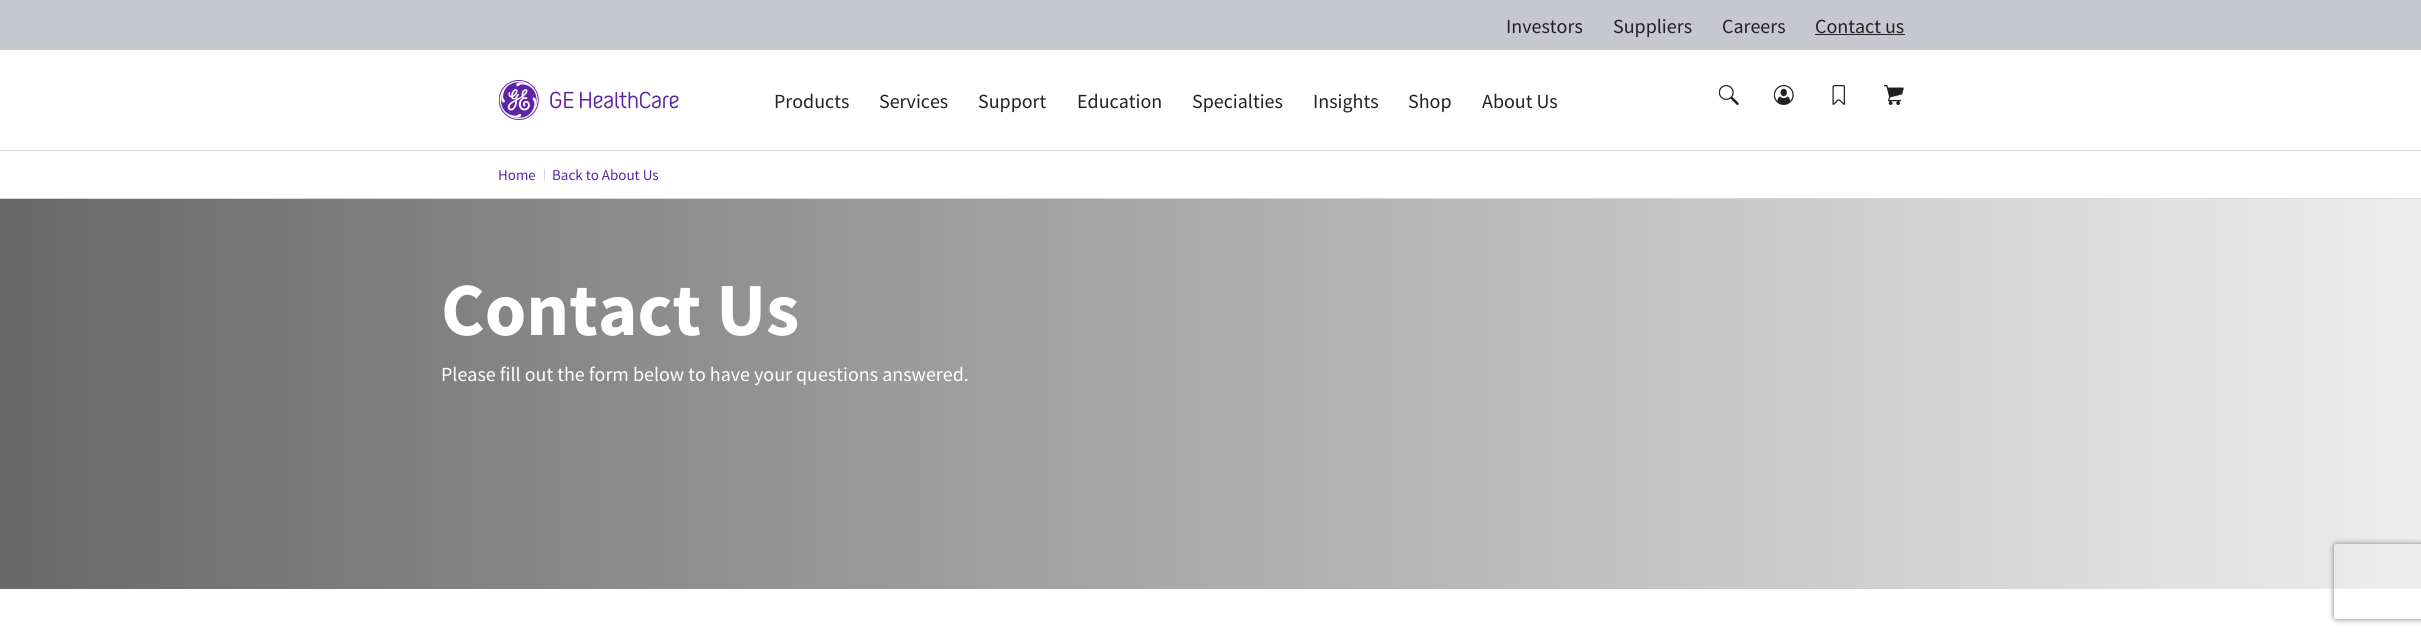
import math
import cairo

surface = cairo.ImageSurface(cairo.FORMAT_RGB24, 2421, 636)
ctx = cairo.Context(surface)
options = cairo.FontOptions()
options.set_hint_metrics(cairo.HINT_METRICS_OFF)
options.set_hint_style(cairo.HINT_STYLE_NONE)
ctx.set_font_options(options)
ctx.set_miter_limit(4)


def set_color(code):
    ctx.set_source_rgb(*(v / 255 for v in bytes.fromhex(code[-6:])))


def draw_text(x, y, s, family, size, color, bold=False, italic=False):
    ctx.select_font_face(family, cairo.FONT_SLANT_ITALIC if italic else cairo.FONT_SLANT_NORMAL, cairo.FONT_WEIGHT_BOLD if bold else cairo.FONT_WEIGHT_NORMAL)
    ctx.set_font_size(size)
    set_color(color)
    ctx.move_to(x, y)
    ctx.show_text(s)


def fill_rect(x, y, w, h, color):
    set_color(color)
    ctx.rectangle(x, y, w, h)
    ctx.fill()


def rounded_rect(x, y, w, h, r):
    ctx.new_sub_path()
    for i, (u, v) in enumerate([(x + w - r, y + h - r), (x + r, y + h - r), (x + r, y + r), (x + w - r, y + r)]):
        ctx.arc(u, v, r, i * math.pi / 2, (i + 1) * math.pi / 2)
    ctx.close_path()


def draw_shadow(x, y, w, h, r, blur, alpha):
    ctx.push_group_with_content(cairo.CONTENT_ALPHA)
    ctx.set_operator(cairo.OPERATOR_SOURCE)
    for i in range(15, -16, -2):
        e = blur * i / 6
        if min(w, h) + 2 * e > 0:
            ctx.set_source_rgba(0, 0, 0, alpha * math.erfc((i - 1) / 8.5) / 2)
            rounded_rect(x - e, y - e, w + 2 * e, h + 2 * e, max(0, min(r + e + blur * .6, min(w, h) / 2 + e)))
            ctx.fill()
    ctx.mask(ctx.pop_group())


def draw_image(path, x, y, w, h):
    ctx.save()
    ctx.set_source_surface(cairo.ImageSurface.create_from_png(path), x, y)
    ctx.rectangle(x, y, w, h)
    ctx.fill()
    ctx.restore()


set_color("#ffffff")
ctx.paint()
fill_rect(0, 0, 2421, 50, "#c7c8cf")
draw_text(1506, 33, "Investors", "Source Sans Pro", 20, "#222222")
draw_text(1613, 33, "Suppliers", "Source Sans Pro", 20, "#222222")
draw_text(1722, 33, "Careers", "Source Sans Pro", 20, "#222222")
draw_text(1815, 33, "Contact us", "Source Sans Pro", 20, "#222222")
fill_rect(1815, 34, 90, 1, "#222222")
draw_image("assets/img1.png", 499, 80, 180, 40)
draw_text(774, 108, "Products", "Source Sans Pro", 20, "#222222")
draw_text(879, 108, "Services", "Source Sans Pro", 20, "#222222")
draw_text(978, 108, "Support", "Source Sans Pro", 20, "#222222")
draw_text(1077, 108, "Education", "Source Sans Pro", 20, "#222222")
draw_text(1192, 108, "Specialties", "Source Sans Pro", 20, "#222222")
draw_text(1313, 108, "Insights", "Source Sans Pro", 20, "#222222")
draw_text(1408, 108, "Shop", "Source Sans Pro", 20, "#222222")
draw_text(1482, 108, "About Us", "Source Sans Pro", 20, "#222222")
draw_image("assets/img2.png", 1719, 85, 20, 20)
draw_image("assets/img3.png", 1774, 85, 20, 20)
draw_image("assets/img4.png", 1832, 85, 13, 20)
draw_image("assets/img5.png", 1884, 85, 20, 20)
fill_rect(0, 150, 2421, 1, "#d7d8db")
fill_rect(0, 198, 2421, 1, "#d7d8db")
fill_rect(544, 169, 1, 12, "#d7d8db")
draw_text(498, 180, "Home", "Source Sans Pro", 15, "#6022a6")
draw_text(552, 180, "Back to About Us", "Source Sans Pro", 15, "#6022a6")
gradient = cairo.LinearGradient(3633, 394, -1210, 394)
gradient.add_color_stop_rgba(0, 1, 1, 1, 1)
gradient.add_color_stop_rgba(0.22, 0.965, 0.965, 0.965, 1)
gradient.add_color_stop_rgba(1, 0.149, 0.149, 0.149, 1)
ctx.set_source(gradient)
ctx.rectangle(0, 199, 2421, 390)
ctx.fill()
draw_text(441, 335, "Contact Us", "Source Sans Pro", 75, "#ffffff", bold=True)
draw_text(441, 381, "Please fill out the form below to have your questions answered.", "Source Sans Pro", 20, "#ffffff")
ctx.save()
ctx.set_fill_rule(cairo.FILL_RULE_EVEN_ODD)
ctx.new_path()
ctx.move_to(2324, 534)
ctx.line_to(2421, 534)
ctx.line_to(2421, 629)
ctx.line_to(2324, 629)
ctx.close_path()
ctx.move_to(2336.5, 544)
ctx.line_to(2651.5, 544)
ctx.curve_to(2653, 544, 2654, 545, 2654, 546.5)
ctx.line_to(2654, 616.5)
ctx.curve_to(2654, 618, 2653, 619, 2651.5, 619)
ctx.line_to(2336.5, 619)
ctx.curve_to(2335, 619, 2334, 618, 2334, 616.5)
ctx.line_to(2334, 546.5)
ctx.curve_to(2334, 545, 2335, 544, 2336.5, 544)
ctx.close_path()
ctx.clip()
set_color("#808080")
draw_shadow(2334, 544, 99, 75, 2.5, 3, 1)
ctx.restore()
surface.write_to_png("output.png")
